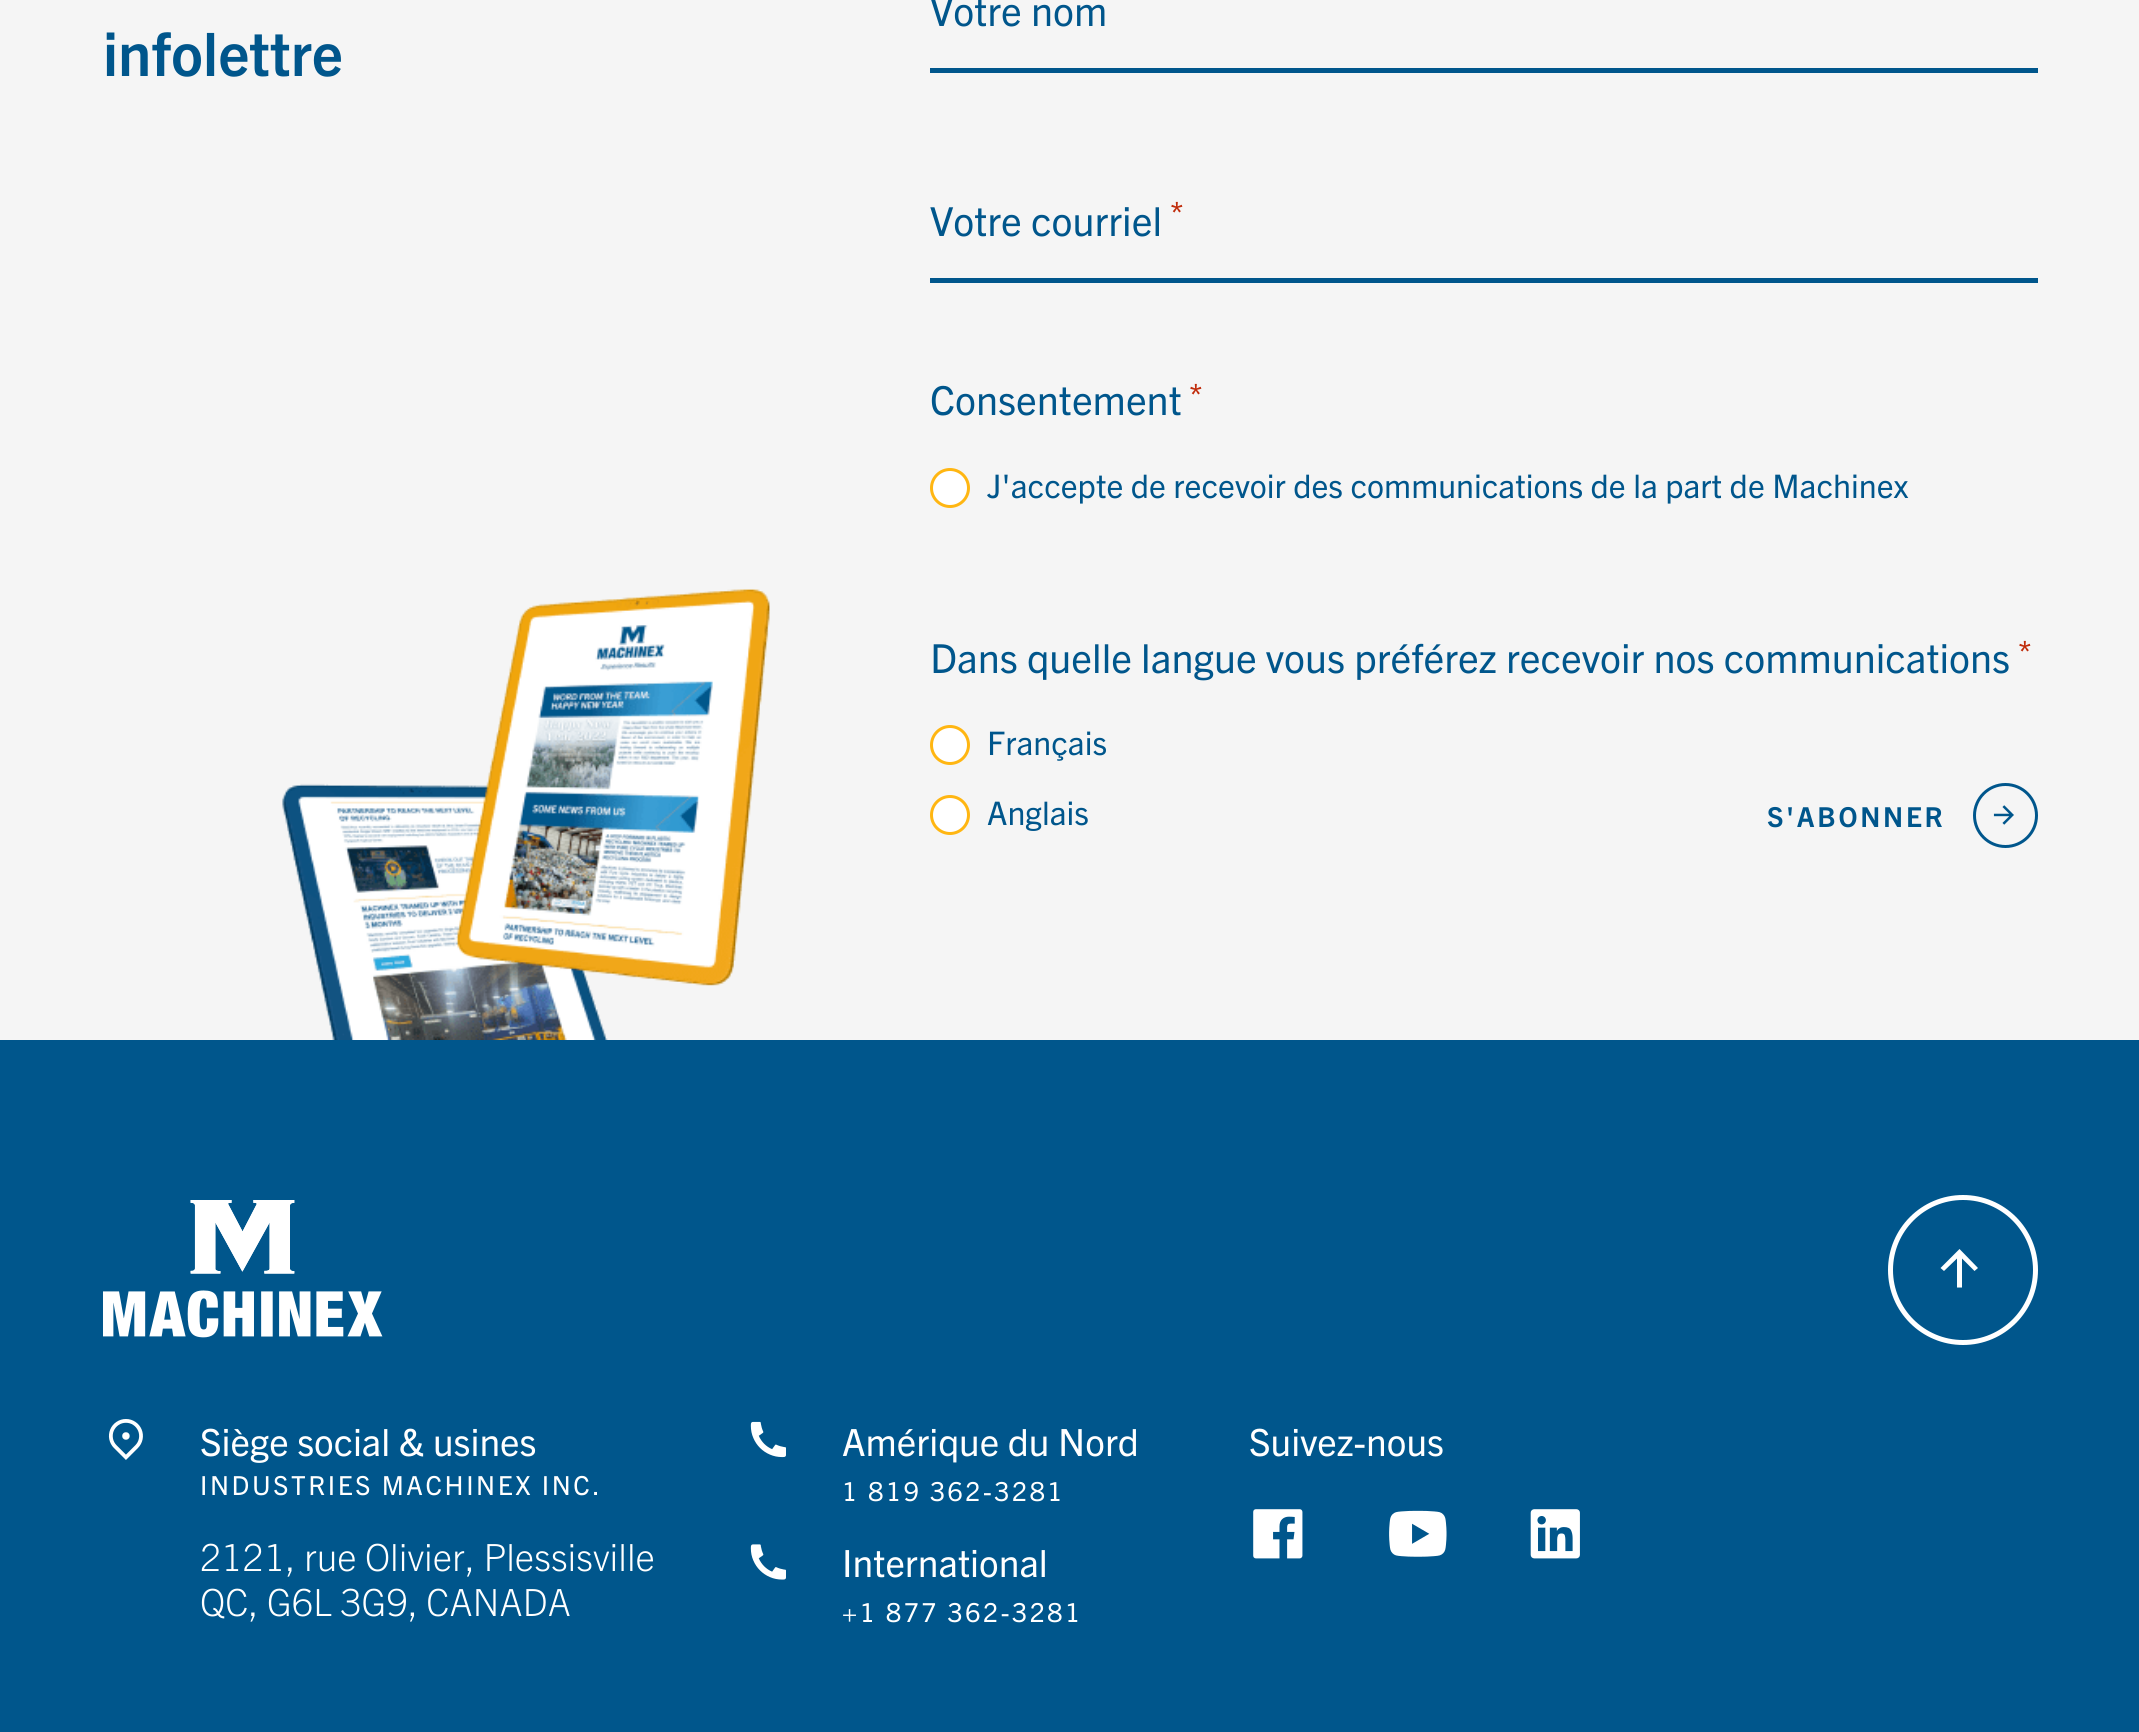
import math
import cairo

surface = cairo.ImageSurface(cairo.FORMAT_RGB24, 2139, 1732)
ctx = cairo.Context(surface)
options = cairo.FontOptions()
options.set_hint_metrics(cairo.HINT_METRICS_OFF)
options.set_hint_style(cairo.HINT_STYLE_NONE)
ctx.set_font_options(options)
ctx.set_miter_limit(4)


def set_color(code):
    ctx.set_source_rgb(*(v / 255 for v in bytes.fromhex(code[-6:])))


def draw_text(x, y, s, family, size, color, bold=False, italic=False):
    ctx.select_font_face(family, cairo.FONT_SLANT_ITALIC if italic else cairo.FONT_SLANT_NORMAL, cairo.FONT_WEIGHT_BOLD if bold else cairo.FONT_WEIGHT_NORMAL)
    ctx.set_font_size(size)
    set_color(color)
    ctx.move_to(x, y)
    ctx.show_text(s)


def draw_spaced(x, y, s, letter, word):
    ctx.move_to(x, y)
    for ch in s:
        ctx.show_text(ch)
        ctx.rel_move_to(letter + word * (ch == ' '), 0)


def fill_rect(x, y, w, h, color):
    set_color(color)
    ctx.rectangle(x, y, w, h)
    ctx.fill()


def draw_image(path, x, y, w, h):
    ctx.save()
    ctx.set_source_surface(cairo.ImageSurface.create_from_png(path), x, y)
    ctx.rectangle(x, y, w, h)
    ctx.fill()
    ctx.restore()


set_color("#f5f5f5")
ctx.paint()
draw_text(103, 76, "infolettre", "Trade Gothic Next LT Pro", 60, "#00568c", bold=True)
draw_text(930, 26, "Votre nom", "Trade Gothic Next LT Pro", 40, "#00568c")
fill_rect(930, 68, 1108, 5, "#00568c")
draw_text(930, 236, "Votre courriel", "Trade Gothic Next LT Pro", 40, "#00568c")
draw_text(1170, 226, "*", "Trade Gothic Next LT Pro", 33, "#c02b0a")
fill_rect(930, 278, 1108, 5, "#00568c")
draw_text(930, 415, "Consentement", "Trade Gothic Next LT Pro", 40, "#00568c")
draw_text(1189, 408, "*", "Trade Gothic Next LT Pro", 33, "#c02b0a")
set_color("#ffffff")
ctx.new_path()
ctx.arc(950, 488, 18.5, 0, 2 * math.pi)
ctx.fill_preserve()
set_color("#ffb612")
ctx.set_line_width(3)
ctx.stroke()
draw_text(987, 498, "J'accepte de recevoir des communications de la part de Machinex", "Trade Gothic Next LT Pro", 32.5, "#00568c")
draw_text(930, 673, "Dans quelle langue vous préférez recevoir nos communications", "Trade Gothic Next LT Pro", 40, "#00568c")
draw_text(2018, 665, "*", "Trade Gothic Next LT Pro", 33, "#c02b0a")
set_color("#ffffff")
ctx.new_path()
ctx.arc(950, 745, 18.5, 0, 2 * math.pi)
ctx.fill_preserve()
set_color("#ffb612")
ctx.stroke()
draw_text(987, 755, "Français", "Trade Gothic Next LT Pro", 32.5, "#00568c")
set_color("#ffffff")
ctx.new_path()
ctx.arc(950, 815, 18.5, 0, 2 * math.pi)
ctx.fill_preserve()
set_color("#ffb612")
ctx.stroke()
draw_text(987, 825, "Anglais", "Trade Gothic Next LT Pro", 32.5, "#00568c")
ctx.select_font_face("Trade Gothic Next LT Pro", cairo.FONT_SLANT_NORMAL, cairo.FONT_WEIGHT_BOLD)
ctx.set_font_size(27.5)
draw_spaced(1767, 827, "S'ABONNER", 2.75, 0)
ctx.new_path()
ctx.arc(2005.5, 815.5, 31, 0, 2 * math.pi)
ctx.stroke()
draw_image("assets/img1.png", 1993, 805, 21, 20)
draw_image("assets/img2.png", 282, 589, 488, 451)
fill_rect(0, 1040, 2139, 692, "#00568c")
draw_image("assets/img3.png", 103, 1200, 280, 138)
ctx.arc(1963, 1270, 72.5, 0, 2 * math.pi)
set_color("#ffffff")
ctx.set_line_width(5)
ctx.stroke()
ctx.new_path()
ctx.move_to(1962, 1258.5)
ctx.line_to(1962, 1287.5)
ctx.line_to(1957, 1287.5)
ctx.line_to(1957, 1258.5)
ctx.line_to(1944, 1271)
ctx.line_to(1940.5, 1268)
ctx.line_to(1959.5, 1249)
ctx.line_to(1978, 1268)
ctx.line_to(1974.5, 1271)
ctx.close_path()
ctx.fill()
draw_image("assets/img4.png", 108, 1419, 35, 41)
draw_text(200, 1456, "Siège social & usines", "Trade Gothic Next LT Pro", 37.5, "#ffffff")
ctx.set_font_size(26.25)
draw_spaced(200, 1495, "INDUSTRIES MACHINEX INC.", 2.6, 0)
draw_text(200, 1571, "2121, rue Olivier, Plessisville", "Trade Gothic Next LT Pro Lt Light", 37.5, "#ffffff")
draw_text(200, 1616, "QC, G6L 3G9, CANADA", "Trade Gothic Next LT Pro Lt Light", 37.5, "#ffffff")
draw_image("assets/img5.png", 750, 1421, 36, 37)
draw_text(842, 1456, "Amérique du Nord", "Trade Gothic Next LT Pro", 37.5, "#ffffff")
ctx.set_font_size(26.25)
draw_spaced(842, 1501, "1 819 362-3281", 2.6, 0)
draw_image("assets/img6.png", 750, 1544, 36, 36)
draw_text(842, 1577, "International", "Trade Gothic Next LT Pro", 37.5, "#ffffff")
ctx.set_font_size(26.25)
draw_spaced(842, 1622, "+1 877 362-3281", 2.6, 0)
draw_text(1249, 1456, "Suivez-nous", "Trade Gothic Next LT Pro", 37.5, "#ffffff")
draw_image("assets/img7.png", 1253, 1509, 50, 50)
draw_image("assets/img8.png", 1389, 1510, 58, 47)
draw_image("assets/img9.png", 1530, 1509, 50, 50)
surface.write_to_png("output.png")
